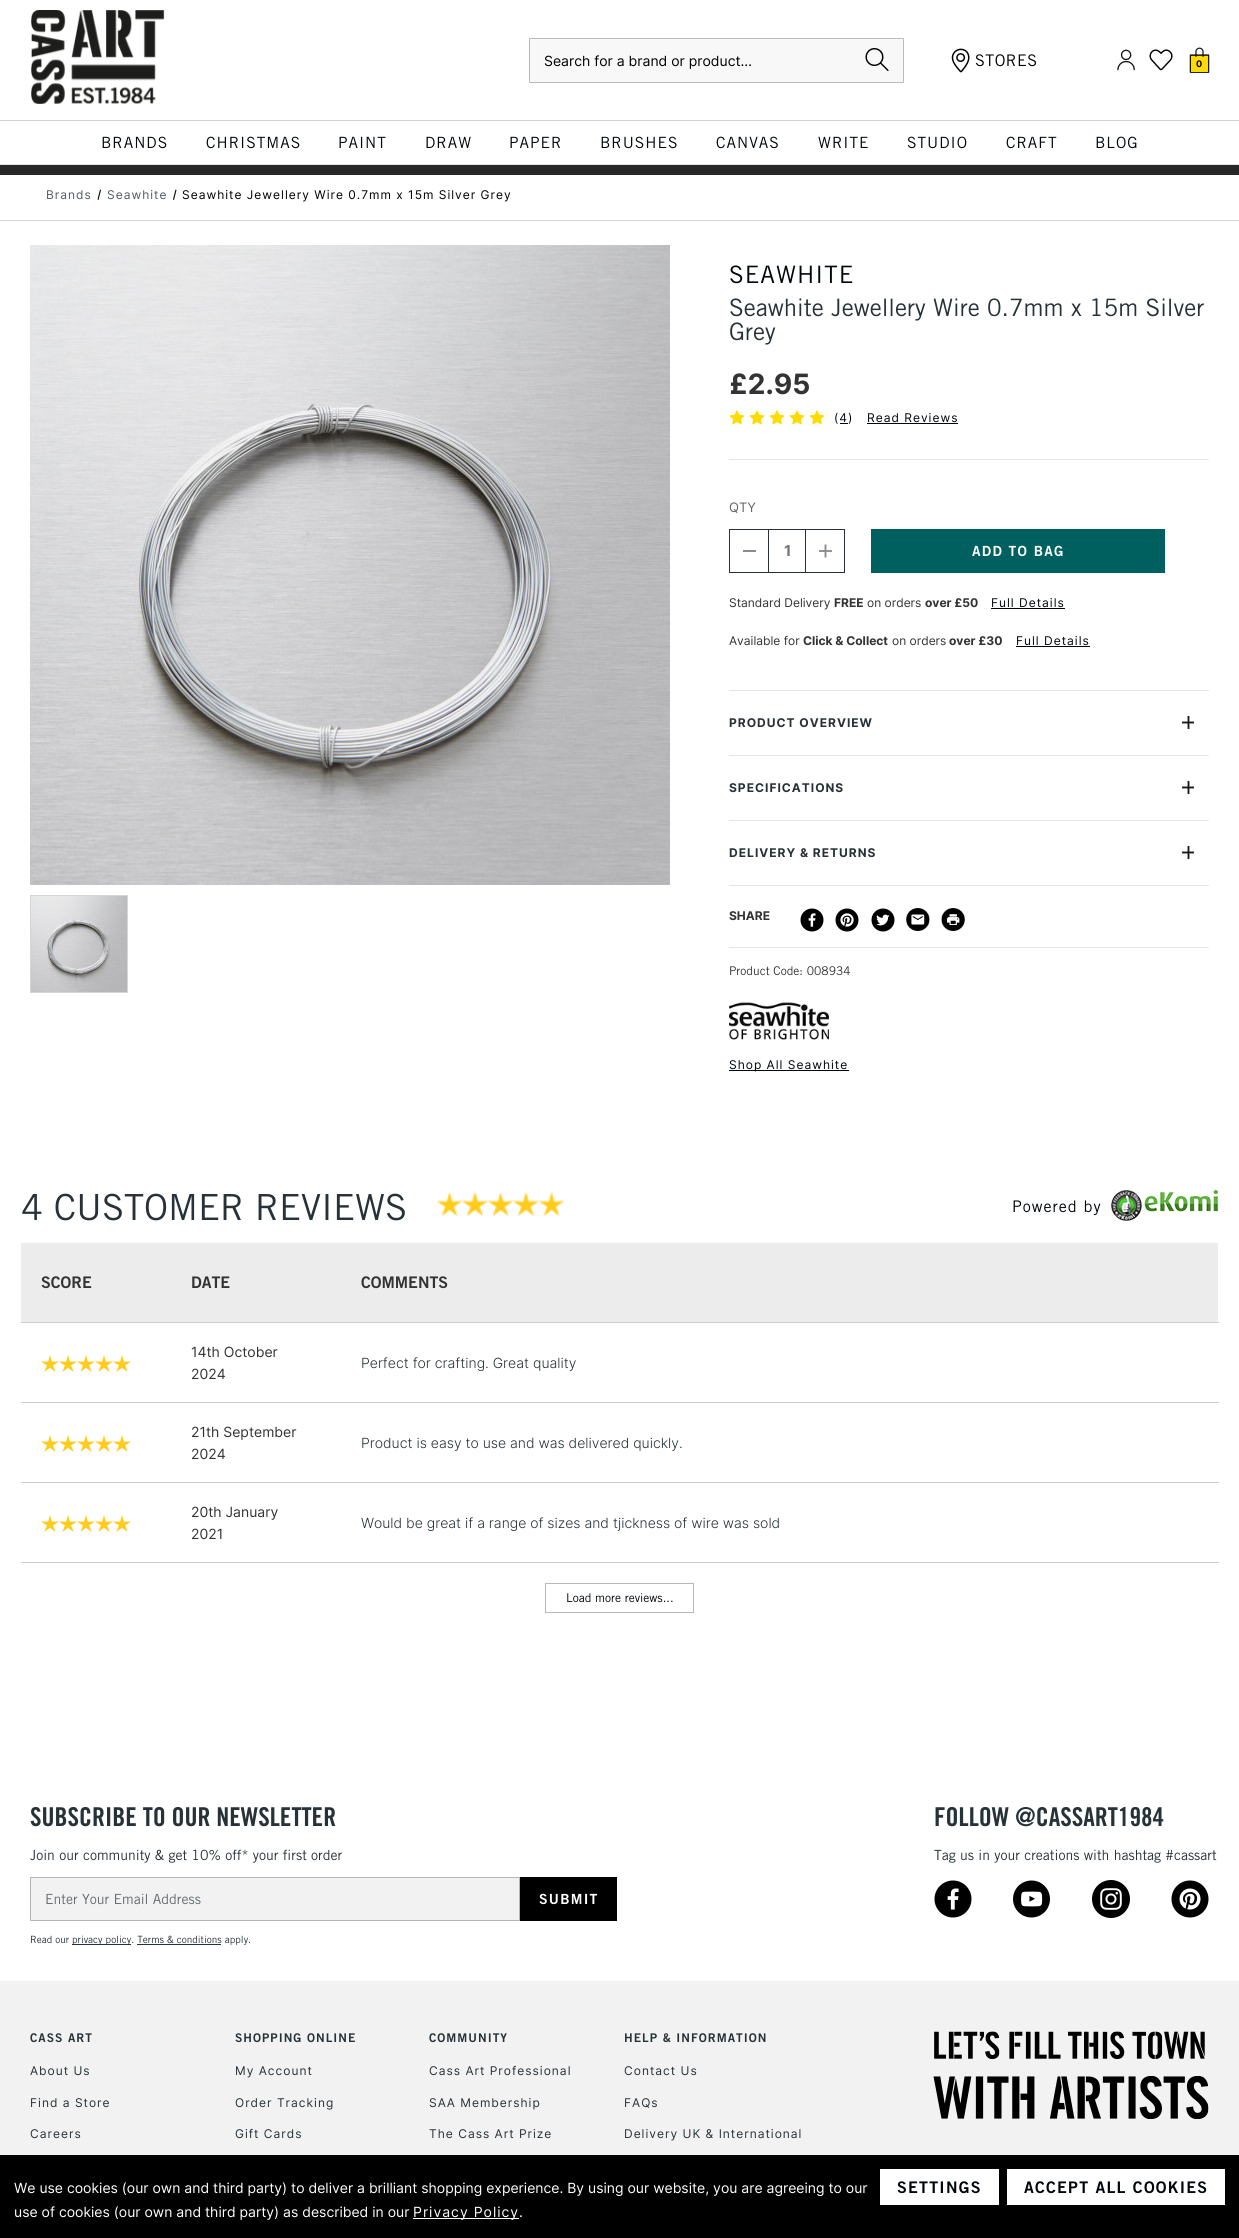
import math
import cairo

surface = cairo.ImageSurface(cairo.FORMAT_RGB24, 1239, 2238)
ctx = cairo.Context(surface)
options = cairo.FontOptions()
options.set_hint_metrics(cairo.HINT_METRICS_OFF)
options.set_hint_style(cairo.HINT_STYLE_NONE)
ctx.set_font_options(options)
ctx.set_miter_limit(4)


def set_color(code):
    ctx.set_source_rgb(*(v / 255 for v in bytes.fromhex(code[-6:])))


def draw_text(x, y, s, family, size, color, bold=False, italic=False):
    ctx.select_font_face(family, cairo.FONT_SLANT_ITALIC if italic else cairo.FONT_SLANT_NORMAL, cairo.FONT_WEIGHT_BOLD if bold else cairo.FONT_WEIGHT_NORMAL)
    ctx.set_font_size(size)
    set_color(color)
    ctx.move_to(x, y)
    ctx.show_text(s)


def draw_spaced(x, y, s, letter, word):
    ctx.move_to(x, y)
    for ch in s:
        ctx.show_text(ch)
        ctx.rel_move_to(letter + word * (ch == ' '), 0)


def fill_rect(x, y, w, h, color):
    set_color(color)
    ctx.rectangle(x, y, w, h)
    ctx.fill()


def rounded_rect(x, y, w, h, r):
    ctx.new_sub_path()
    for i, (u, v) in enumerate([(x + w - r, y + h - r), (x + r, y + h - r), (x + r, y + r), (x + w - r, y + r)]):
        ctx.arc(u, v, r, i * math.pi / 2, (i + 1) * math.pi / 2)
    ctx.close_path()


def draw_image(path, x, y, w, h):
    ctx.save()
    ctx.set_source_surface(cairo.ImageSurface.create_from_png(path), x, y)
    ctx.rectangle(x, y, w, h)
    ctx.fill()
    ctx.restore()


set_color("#ffffff")
ctx.paint()
draw_image("assets/img1.png", 31, 10, 134, 94)
set_color("#f8f8f8")
rounded_rect(529.5, 38.5, 374, 44, 0.5)
ctx.fill_preserve()
set_color("#bababa")
ctx.set_line_width(1)
ctx.stroke()
draw_text(544, 66, "Search for a brand or product…", "Inter", 14, "#000000")
draw_image("assets/img2.png", 865, 48, 24, 23)
draw_image("assets/img3.png", 951, 48, 19, 25)
ctx.select_font_face("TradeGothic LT")
ctx.set_font_size(16)
draw_spaced(975, 66, "STORES", 0.5, 0)
draw_image("assets/img4.png", 1117, 49, 18, 22)
draw_image("assets/img5.png", 1149, 49, 24, 22)
draw_image("assets/img6.png", 1189, 47, 21, 26)
draw_text(1196, 67, "0", "Inter", 9, "#000000", bold=True)
fill_rect(0, 120, 1239, 1, "#d1d2d4")
fill_rect(0, 164, 1239, 1, "#e5e5e5")
ctx.select_font_face("TradeGothic LT")
ctx.set_font_size(15.5)
set_color("#00060b")
draw_spaced(101, 148, "BRANDS", 1, 0)
draw_spaced(206, 148, "CHRISTMAS", 1, 0)
draw_spaced(338, 148, "PAINT", 1, 0)
draw_spaced(425, 148, "DRAW", 1, 0)
draw_spaced(509, 148, "PAPER", 1, 0)
draw_spaced(600, 148, "BRUSHES", 1, 0)
draw_spaced(716, 148, "CANVAS", 1, 0)
draw_spaced(818, 148, "WRITE", 1, 0)
draw_spaced(907, 148, "STUDIO", 1, 0)
draw_spaced(1006, 148, "CRAFT", 1, 0)
draw_spaced(1095, 148, "BLOG", 1, 0)
fill_rect(0, 165, 1239, 10, "#282727")
ctx.select_font_face("Inter")
ctx.set_font_size(12)
set_color("#4f5b62")
draw_spaced(46, 199, "Brands", 1, 0)
set_color("#000000")
ctx.new_path()
ctx.move_to(100, 189.5)
ctx.line_to(101, 190)
ctx.line_to(98.5, 200)
ctx.line_to(97.5, 199.5)
ctx.close_path()
ctx.fill()
set_color("#4f5b62")
draw_spaced(107, 199, "Seawhite", 1, 0)
set_color("#000000")
ctx.new_path()
ctx.move_to(175.5, 189.5)
ctx.line_to(176.5, 190)
ctx.line_to(174, 200)
ctx.line_to(173, 199.5)
ctx.close_path()
ctx.fill()
draw_spaced(182, 199, "Seawhite Jewellery Wire 0.7mm x 15m Silver Grey", 1, 0)
fill_rect(0, 220, 1239, 1, "#d4d6d7")
draw_image("assets/img7.png", 30, 245, 640, 640)
ctx.rectangle(30.5, 895.5, 97, 97)
ctx.stroke()
draw_image("assets/img8.png", 31, 896, 96, 96)
fill_rect(729, 459, 480, 1, "#e5e5e5")
ctx.select_font_face("TradeGothic LT")
ctx.set_font_size(24)
set_color("#00060b")
draw_spaced(729, 283, "SEAWHITE", 1, 0)
draw_text(729, 316, "Seawhite Jewellery Wire 0.7mm x 15m Silver", "TradeGothic LT", 24, "#263238")
draw_text(729, 340, "Grey", "TradeGothic LT", 24, "#263238")
draw_text(729, 394, "£2.95", "Inter", 28, "#333333", bold=True)
draw_image("assets/img9.png", 729, 410, 16, 15)
draw_image("assets/img9.png", 749, 410, 16, 15)
draw_image("assets/img9.png", 769, 410, 16, 15)
draw_image("assets/img9.png", 789, 410, 16, 15)
draw_image("assets/img9.png", 809, 410, 16, 15)
ctx.select_font_face("Inter")
ctx.set_font_size(12)
set_color("#00060b")
draw_spaced(834, 422, "(4)", 1, 0)
fill_rect(840, 423, 8, 1, "#00060b")
draw_spaced(867, 422, "Read Reviews", 1, 0)
fill_rect(867, 423, 91, 1, "#00060b")
draw_text(729, 512, "QTY", "Inter", 13, "#666666")
ctx.rectangle(729.5, 529.5, 39, 43)
set_color("#263238")
ctx.stroke()
fill_rect(743, 550, 13, 2, "#8c8c8c")
fill_rect(769, 529, 36, 1, "#263238")
fill_rect(769, 572, 36, 1, "#263238")
draw_text(784, 556, "1", "Inter", 15, "#757575", bold=True)
ctx.rectangle(805.5, 529.5, 39, 43)
set_color("#263238")
ctx.stroke()
draw_image("assets/img10.png", 819, 544, 13, 14)
fill_rect(871, 529, 294, 44, "#006060")
ctx.select_font_face("TradeGothic LT", cairo.FONT_SLANT_NORMAL, cairo.FONT_WEIGHT_BOLD)
ctx.set_font_size(14)
set_color("#ffffff")
draw_spaced(972, 556, "ADD TO BAG", 1.25, 0)
draw_text(729, 607, "Standard Delivery", "Inter", 12, "#333333")
draw_text(834, 607, "FREE", "Inter", 12, "#333333", bold=True)
draw_text(867, 607, "on orders", "Inter", 12, "#333333")
draw_text(925, 607, "over £50", "Inter", 12, "#333333", bold=True)
ctx.select_font_face("Inter")
set_color("#00060b")
draw_spaced(991, 607, "Full Details", 1, 0)
fill_rect(991, 608, 74, 1, "#00060b")
draw_text(729, 645, "Available for", "Inter", 12, "#333333")
draw_text(803, 645, "Click & Collect", "Inter", 12, "#333333", bold=True)
draw_text(892, 645, "on orders", "Inter", 12, "#333333")
draw_text(949, 645, "over £30", "Inter", 12, "#333333", bold=True)
ctx.select_font_face("Inter")
set_color("#00060b")
draw_spaced(1016, 645, "Full Details", 1, 0)
fill_rect(1016, 646, 74, 1, "#00060b")
fill_rect(729, 690, 480, 1, "#e5e5e5")
fill_rect(729, 755, 480, 1, "#e5e5e5")
ctx.select_font_face("Inter", cairo.FONT_SLANT_NORMAL, cairo.FONT_WEIGHT_BOLD)
set_color("#263238")
draw_spaced(729, 727, "PRODUCT OVERVIEW", 1, 0)
draw_image("assets/img11.png", 1182, 716, 12, 13)
fill_rect(729, 820, 480, 1, "#e5e5e5")
set_color("#263238")
draw_spaced(729, 792, "SPECIFICATIONS", 1, 0)
draw_image("assets/img11.png", 1182, 781, 12, 13)
fill_rect(729, 885, 480, 1, "#e5e5e5")
set_color("#263238")
draw_spaced(729, 857, "DELIVERY & RETURNS", 1, 0)
draw_image("assets/img11.png", 1182, 846, 12, 13)
fill_rect(729, 947, 480, 1, "#e5e5e5")
draw_text(729, 920, "SHARE", "Inter", 12, "#333333", bold=True)
draw_image("assets/img12.png", 800, 908, 24, 24)
draw_image("assets/img13.png", 835, 908, 24, 24)
draw_image("assets/img14.png", 871, 908, 24, 24)
draw_image("assets/img15.png", 906, 908, 24, 23)
draw_image("assets/img16.png", 941, 908, 24, 23)
draw_text(729, 975, "Product Code: 008934", "TradeGothic LT", 12, "#333333")
draw_image("assets/img17.png", 729, 1002, 100, 38)
fill_rect(729, 1070, 120, 1, "#00060b")
ctx.select_font_face("Inter")
draw_spaced(729, 1069, "Shop All Seawhite", 1, 0)
draw_text(21, 1220, "4 CUSTOMER REVIEWS", "TradeGothic LT", 36, "#263238")
draw_image("assets/img18.png", 437, 1192, 25, 24)
draw_image("assets/img19.png", 462, 1192, 26, 24)
draw_image("assets/img18.png", 488, 1192, 25, 24)
draw_image("assets/img19.png", 513, 1192, 26, 24)
draw_image("assets/img20.png", 539, 1192, 25, 24)
ctx.set_font_size(16)
set_color("#00060b")
draw_spaced(1012, 1212, "Powered by", 1, 0)
draw_image("assets/img21.png", 1111, 1190, 107, 31)
fill_rect(21, 1243, 1197, 79, "#ececec")
fill_rect(21, 1322, 1198, 1, "#cfcfcf")
draw_text(41, 1288, "SCORE", "TradeGothic LT", 16, "#333333", bold=True)
draw_text(191, 1288, "DATE", "TradeGothic LT", 16, "#333333", bold=True)
draw_text(361, 1288, "COMMENTS", "TradeGothic LT", 16, "#333333", bold=True)
fill_rect(21, 1402, 1198, 1, "#cfcfcf")
draw_image("assets/img22.png", 41, 1355, 18, 17)
draw_image("assets/img22.png", 59, 1355, 18, 17)
draw_image("assets/img22.png", 77, 1355, 18, 17)
draw_image("assets/img22.png", 95, 1355, 18, 17)
draw_image("assets/img22.png", 113, 1355, 18, 17)
draw_text(191, 1357, "14th October", "Inter", 14, "#333333")
draw_text(191, 1379, "2024", "Inter", 14, "#333333")
draw_text(361, 1368, "Perfect for crafting. Great quality", "Inter Light", 14, "#263238")
fill_rect(21, 1482, 1198, 1, "#cfcfcf")
draw_image("assets/img22.png", 41, 1435, 18, 17)
draw_image("assets/img22.png", 59, 1435, 18, 17)
draw_image("assets/img22.png", 77, 1435, 18, 17)
draw_image("assets/img22.png", 95, 1435, 18, 17)
draw_image("assets/img22.png", 113, 1435, 18, 17)
draw_text(191, 1437, "21th September", "Inter", 14, "#333333")
draw_text(191, 1459, "2024", "Inter", 14, "#333333")
draw_text(361, 1448, "Product is easy to use and was delivered quickly.", "Inter Light", 14, "#263238")
fill_rect(21, 1562, 1198, 1, "#cfcfcf")
draw_image("assets/img22.png", 41, 1515, 18, 17)
draw_image("assets/img22.png", 59, 1515, 18, 17)
draw_image("assets/img22.png", 77, 1515, 18, 17)
draw_image("assets/img22.png", 95, 1515, 18, 17)
draw_image("assets/img22.png", 113, 1515, 18, 17)
draw_text(191, 1517, "20th January", "Inter", 14, "#333333")
draw_text(191, 1539, "2021", "Inter", 14, "#333333")
draw_text(361, 1528, "Would be great if a range of sizes and tjickness of wire was sold", "Inter Light", 14, "#263238")
ctx.rectangle(545.5, 1583.5, 148, 29)
set_color("#b8b8b8")
ctx.stroke()
draw_text(566, 1602, "Load more reviews...", "TradeGothic LT", 12, "#00060b")
draw_text(30, 1826, "SUBSCRIBE TO OUR NEWSLETTER", "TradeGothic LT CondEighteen", 26, "#263238", bold=True)
draw_text(30, 1860, "Join our community & get 10% off* your first order", "TradeGothic LT", 14, "#263238")
set_color("#f2f2f3")
ctx.new_path()
ctx.move_to(31, 1877)
ctx.line_to(520, 1877)
ctx.line_to(520, 1921)
ctx.line_to(31, 1921)
ctx.curve_to(30.5, 1921, 30, 1920.5, 30, 1920)
ctx.line_to(30, 1878)
ctx.curve_to(30, 1877.5, 30.5, 1877, 31, 1877)
ctx.close_path()
ctx.fill()
ctx.rectangle(30.5, 1877.5, 489, 43)
ctx.set_source_rgba(0, 0, 0, 0.25)
ctx.stroke()
draw_text(45, 1904, "Enter Your Email Address", "TradeGothic LT", 14, "#636c70")
fill_rect(520, 1877, 97, 44, "#000000")
ctx.select_font_face("TradeGothic LT", cairo.FONT_SLANT_NORMAL, cairo.FONT_WEIGHT_BOLD)
set_color("#ffffff")
draw_spaced(539, 1904, "SUBMIT", 1.25, 0)
draw_text(30, 1943, "Read our", "TradeGothic LT", 10, "#263238")
fill_rect(72, 1944, 59, 1, "#263238")
draw_text(72, 1943, "privacy policy. Terms & conditions apply.", "TradeGothic LT", 10, "#263238")
fill_rect(137, 1944, 84, 1, "#263238")
draw_text(934, 1826, "FOLLOW @CASSART1984", "TradeGothic LT CondEighteen", 26, "#263238", bold=True)
draw_text(934, 1860, "Tag us in your creations with hashtag #cassart", "TradeGothic LT", 14, "#263238")
draw_image("assets/img23.png", 934, 1880, 38, 38)
draw_image("assets/img24.png", 1013, 1880, 37, 38)
draw_image("assets/img25.png", 1092, 1880, 38, 38)
draw_image("assets/img26.png", 1171, 1880, 38, 38)
fill_rect(0, 1981, 1239, 174, "#f2f2f3")
ctx.select_font_face("TradeGothic LT", cairo.FONT_SLANT_NORMAL, cairo.FONT_WEIGHT_BOLD)
ctx.set_font_size(12)
set_color("#263238")
draw_spaced(30, 2042, "CASS ART", 1, 0)
ctx.select_font_face("Inter")
draw_spaced(30, 2075, "About Us", 1, 0)
draw_spaced(30, 2107, "Find a Store", 1, 0)
draw_spaced(30, 2138, "Careers", 1, 0)
ctx.select_font_face("TradeGothic LT", cairo.FONT_SLANT_NORMAL, cairo.FONT_WEIGHT_BOLD)
draw_spaced(235, 2042, "SHOPPING ONLINE", 1, 0)
ctx.select_font_face("Inter")
draw_spaced(235, 2075, "My Account", 1, 0)
draw_spaced(235, 2107, "Order Tracking", 1, 0)
draw_spaced(235, 2138, "Gift Cards", 1, 0)
ctx.select_font_face("TradeGothic LT", cairo.FONT_SLANT_NORMAL, cairo.FONT_WEIGHT_BOLD)
draw_spaced(429, 2042, "COMMUNITY", 1, 0)
ctx.select_font_face("Inter")
draw_spaced(429, 2075, "Cass Art Professional", 1, 0)
draw_spaced(429, 2107, "SAA Membership", 1, 0)
draw_spaced(429, 2138, "The Cass Art Prize", 1, 0)
ctx.select_font_face("TradeGothic LT", cairo.FONT_SLANT_NORMAL, cairo.FONT_WEIGHT_BOLD)
draw_spaced(624, 2042, "HELP & INFORMATION", 1, 0)
ctx.select_font_face("Inter")
draw_spaced(624, 2075, "Contact Us", 1, 0)
draw_spaced(624, 2107, "FAQs", 1, 0)
draw_spaced(624, 2138, "Delivery UK & International", 1, 0)
draw_image("assets/img27.png", 933, 2031, 276, 88)
fill_rect(0, 2155, 1239, 83, "#000000")
draw_text(14, 2193, "We use cookies (our own and third party) to deliver a brilliant shopping experience. By using our website, you are agreeing to our", "Inter", 14, "#ffffff")
draw_text(14, 2217, "use of cookies (our own and third party) as described in our", "Inter", 14, "#ffffff")
fill_rect(413, 2218, 106, 1, "#ffffff")
draw_spaced(413, 2217, "Privacy Policy", 1, 0)
draw_text(519, 2217, ".", "Inter", 14, "#ffffff")
fill_rect(880, 2169, 119, 36, "#ffffff")
ctx.select_font_face("TradeGothic LT", cairo.FONT_SLANT_NORMAL, cairo.FONT_WEIGHT_BOLD)
ctx.set_font_size(16)
set_color("#00060b")
draw_spaced(897, 2193, "SETTINGS", 1.25, 0)
fill_rect(1007, 2169, 218, 36, "#ffffff")
set_color("#00060b")
draw_spaced(1024, 2193, "ACCEPT ALL COOKIES", 1.25, 0)
surface.write_to_png("output.png")
